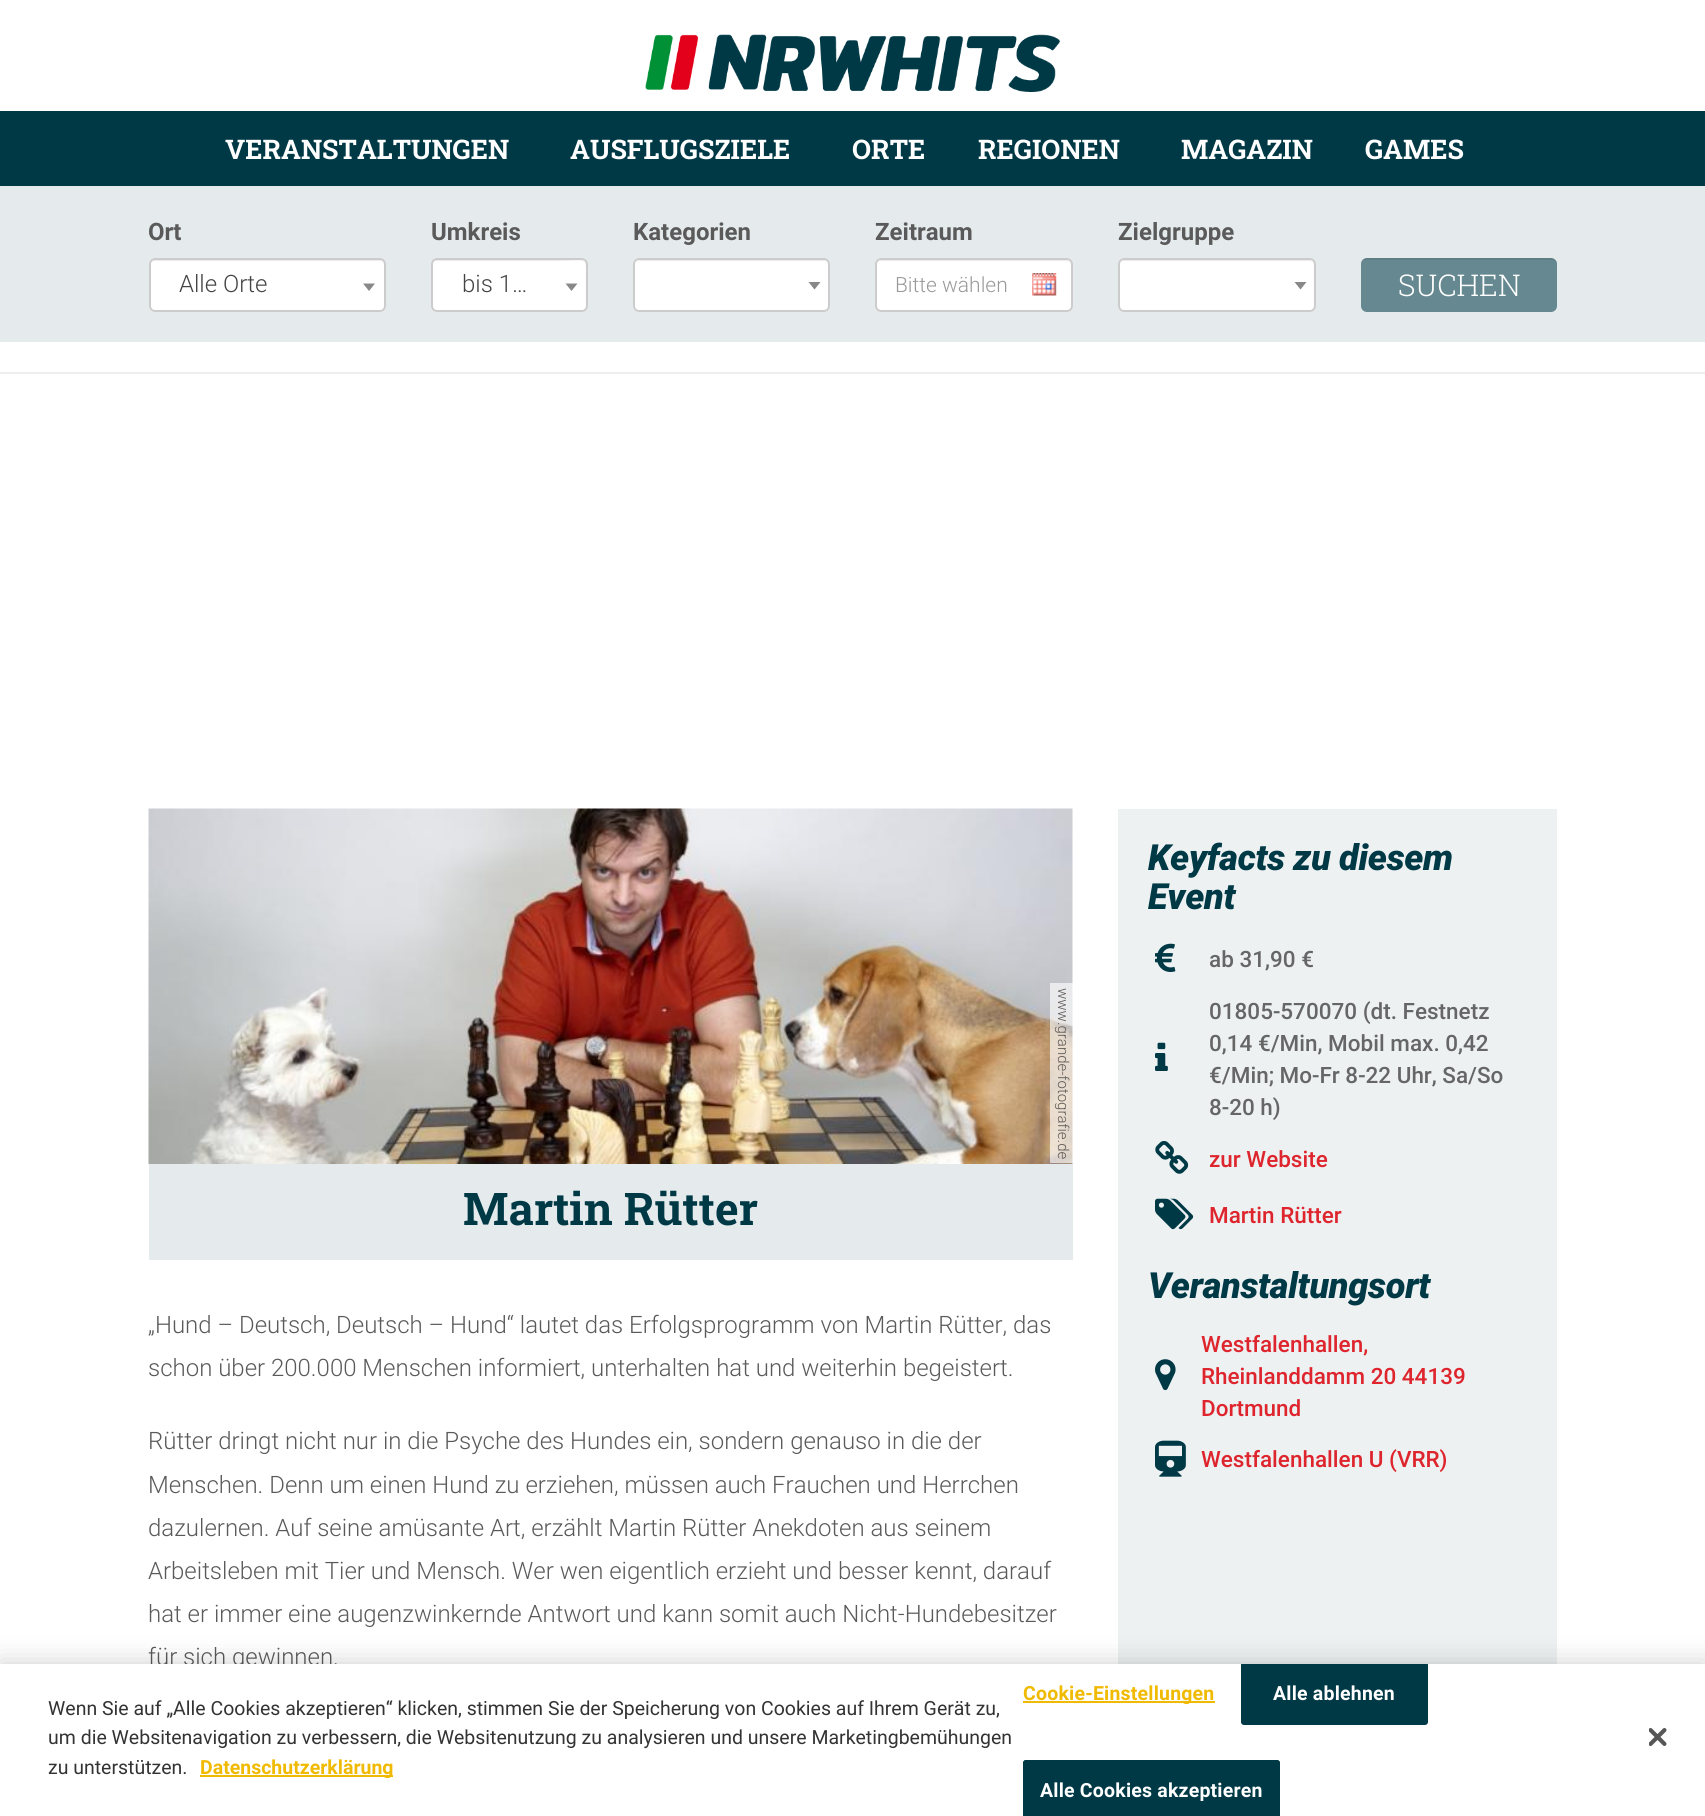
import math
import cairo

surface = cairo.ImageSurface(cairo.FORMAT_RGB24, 1705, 1816)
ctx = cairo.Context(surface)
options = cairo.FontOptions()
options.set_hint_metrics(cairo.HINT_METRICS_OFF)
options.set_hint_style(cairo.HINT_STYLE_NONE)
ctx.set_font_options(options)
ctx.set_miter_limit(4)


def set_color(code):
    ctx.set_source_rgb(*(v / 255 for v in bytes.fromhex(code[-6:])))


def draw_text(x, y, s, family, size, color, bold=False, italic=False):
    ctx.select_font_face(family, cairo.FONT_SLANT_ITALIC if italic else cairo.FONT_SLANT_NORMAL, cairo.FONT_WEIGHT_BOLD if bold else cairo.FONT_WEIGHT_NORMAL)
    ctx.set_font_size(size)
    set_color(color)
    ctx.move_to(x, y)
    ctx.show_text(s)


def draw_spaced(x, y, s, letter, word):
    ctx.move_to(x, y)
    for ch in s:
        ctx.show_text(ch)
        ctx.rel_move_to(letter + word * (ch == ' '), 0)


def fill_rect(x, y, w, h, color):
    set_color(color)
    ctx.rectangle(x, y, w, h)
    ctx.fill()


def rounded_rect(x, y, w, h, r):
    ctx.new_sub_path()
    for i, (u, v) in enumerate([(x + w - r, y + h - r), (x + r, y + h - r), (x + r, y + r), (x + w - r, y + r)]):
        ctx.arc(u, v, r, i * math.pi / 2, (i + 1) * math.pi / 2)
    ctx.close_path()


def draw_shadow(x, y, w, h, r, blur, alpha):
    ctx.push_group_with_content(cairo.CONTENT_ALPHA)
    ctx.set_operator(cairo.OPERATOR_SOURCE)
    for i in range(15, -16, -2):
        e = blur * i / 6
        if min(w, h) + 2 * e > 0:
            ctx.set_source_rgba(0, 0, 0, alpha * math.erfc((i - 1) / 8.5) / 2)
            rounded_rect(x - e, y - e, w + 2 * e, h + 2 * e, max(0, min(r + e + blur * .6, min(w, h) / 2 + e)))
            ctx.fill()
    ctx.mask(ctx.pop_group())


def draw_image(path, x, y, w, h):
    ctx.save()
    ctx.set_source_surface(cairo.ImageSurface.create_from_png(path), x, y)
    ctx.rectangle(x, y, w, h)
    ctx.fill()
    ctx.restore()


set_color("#ffffff")
ctx.paint()
fill_rect(0, 372, 1705, 2, "#eeeeee")
draw_image("assets/img1.png", 645, 34, 415, 58)
fill_rect(0, 111, 1705, 75, "#003946")
draw_text(225, 159, "VERANSTALTUNGEN", "Roboto Slab", 27, "#ffffff", bold=True)
draw_text(570, 159, "AUSFLUGSZIELE", "Roboto Slab", 27, "#ffffff", bold=True)
draw_text(852, 159, "ORTE", "Roboto Slab", 27, "#ffffff", bold=True)
draw_text(978, 159, "REGIONEN", "Roboto Slab", 27, "#ffffff", bold=True)
draw_text(1181, 159, "MAGAZIN", "Roboto Slab", 27, "#ffffff", bold=True)
draw_text(1365, 159, "GAMES", "Roboto Slab", 27, "#ffffff", bold=True)
fill_rect(0, 186, 1705, 156, "#e5ebec")
draw_text(148, 240, "Ort", "Roboto", 24, "#5a5a5a", bold=True)
set_color("#ffffff")
rounded_rect(149, 258, 237, 54, 6)
ctx.fill()
set_color("#ececec")
ctx.new_path()
ctx.move_to(154, 261)
ctx.line_to(380, 261)
ctx.curve_to(382, 261, 384, 263, 384, 266)
ctx.line_to(384, 265)
ctx.curve_to(384, 262, 382, 260, 379, 260)
ctx.line_to(155, 260)
ctx.curve_to(152, 260, 150, 262, 150, 265)
ctx.line_to(150, 266)
ctx.curve_to(150, 263, 152, 261, 154, 261)
ctx.close_path()
ctx.fill()
rounded_rect(150, 259, 235, 52, 5)
set_color("#cccccc")
ctx.stroke()
draw_text(179, 292, "Alle Orte", "Roboto Light", 24, "#444444")
set_color("#888888")
ctx.new_path()
ctx.move_to(363, 283.5)
ctx.line_to(375, 283.5)
ctx.line_to(369, 291)
ctx.close_path()
ctx.fill()
draw_text(431, 240, "Umkreis", "Roboto", 24, "#5a5a5a", bold=True)
set_color("#ffffff")
rounded_rect(431, 258, 157, 54, 6)
ctx.fill()
set_color("#ececec")
ctx.new_path()
ctx.move_to(436, 261)
ctx.line_to(558, 261)
ctx.curve_to(588, 261, 586, 255, 586, 280)
ctx.line_to(586, 309)
ctx.curve_to(587, 308, 587, 307, 587, 306)
ctx.line_to(587, 265)
ctx.curve_to(587, 262, 585, 260, 582, 260)
ctx.line_to(437, 260)
ctx.curve_to(434, 260, 432, 262, 432, 265)
ctx.line_to(432, 266)
ctx.curve_to(432, 263, 434, 261, 436, 261)
ctx.close_path()
ctx.fill()
rounded_rect(432, 259, 155, 52, 5)
set_color("#cccccc")
ctx.stroke()
draw_text(462, 292, "bis 1…", "Roboto Light", 24, "#444444")
set_color("#888888")
ctx.new_path()
ctx.move_to(565.5, 283.5)
ctx.line_to(577.5, 283.5)
ctx.line_to(571.5, 291)
ctx.close_path()
ctx.fill()
draw_text(633, 240, "Kategorien", "Roboto", 24, "#5a5a5a", bold=True)
set_color("#ffffff")
rounded_rect(633, 258, 197, 54, 6)
ctx.fill()
set_color("#ececec")
ctx.new_path()
ctx.move_to(639, 261)
ctx.line_to(824, 261)
ctx.curve_to(826, 261, 828, 263, 828, 266)
ctx.line_to(828, 265)
ctx.curve_to(828, 262, 826, 260, 823, 260)
ctx.line_to(640, 260)
ctx.curve_to(638, 260, 637, 261, 636, 262)
ctx.close_path()
ctx.fill()
rounded_rect(634, 259, 195, 52, 5)
set_color("#cccccc")
ctx.stroke()
set_color("#888888")
ctx.new_path()
ctx.move_to(808.5, 282)
ctx.line_to(820.5, 282)
ctx.line_to(814.5, 289.5)
ctx.close_path()
ctx.fill()
draw_text(875, 240, "Zeitraum", "Roboto", 24, "#5a5a5a", bold=True)
set_color("#ffffff")
rounded_rect(875, 258, 198, 54, 6)
ctx.fill()
set_color("#ececec")
ctx.new_path()
ctx.move_to(880, 261)
ctx.line_to(1066, 261)
ctx.curve_to(1069, 261, 1071, 263, 1071, 266)
ctx.line_to(1071, 265)
ctx.curve_to(1071, 262, 1069, 260, 1066, 260)
ctx.line_to(881, 260)
ctx.curve_to(878, 260, 876, 262, 876, 265)
ctx.line_to(876, 266)
ctx.curve_to(876, 263, 878, 261, 880, 261)
ctx.close_path()
ctx.fill()
rounded_rect(876, 259, 196, 52, 5)
set_color("#cccccc")
ctx.stroke()
draw_text(895, 292, "Bitte wählen", "Roboto Light", 21, "#999999")
draw_image("assets/img2.png", 1032, 273, 25, 23)
draw_text(1118, 240, "Zielgruppe", "Roboto", 24, "#5a5a5a", bold=True)
set_color("#ffffff")
rounded_rect(1118, 258, 198, 54, 6)
ctx.fill()
set_color("#ececec")
ctx.new_path()
ctx.move_to(1124, 261)
ctx.line_to(1310, 261)
ctx.curve_to(1312, 261, 1314, 263, 1314, 266)
ctx.line_to(1314, 265)
ctx.curve_to(1314, 262, 1312, 260, 1309, 260)
ctx.line_to(1124, 260)
ctx.curve_to(1121, 260, 1119, 262, 1119, 265)
ctx.line_to(1119, 266)
ctx.curve_to(1119, 263, 1121, 261, 1124, 261)
ctx.close_path()
ctx.fill()
rounded_rect(1119, 259, 196, 52, 5)
set_color("#cccccc")
ctx.stroke()
set_color("#888888")
ctx.new_path()
ctx.move_to(1294.5, 282)
ctx.line_to(1306.5, 282)
ctx.line_to(1300.5, 289.5)
ctx.close_path()
ctx.fill()
set_color("#668890")
rounded_rect(1361, 258, 196, 54, 6)
ctx.fill()
ctx.set_source_rgba(0, 0, 0, 0.07)
ctx.new_path()
ctx.move_to(1366, 260)
ctx.line_to(1551, 260)
ctx.curve_to(1554, 260, 1557, 262, 1557, 266)
ctx.line_to(1557, 264)
ctx.curve_to(1557, 261, 1554, 258, 1551, 258)
ctx.line_to(1367, 258)
ctx.curve_to(1364, 258, 1362, 260, 1361, 262)
ctx.curve_to(1362, 261, 1364, 260, 1366, 260)
ctx.close_path()
ctx.fill()
draw_text(1398, 296, "SUCHEN", "Roboto Slab Light", 30, "#ffffff")
draw_image("assets/img3.png", 148, 808, 925, 356)
ctx.set_source_rgba(1, 1, 1, 0.65)
ctx.rectangle(1050, 983, 23, 180)
ctx.fill()
ctx.save()
ctx.translate(1058, 988)
ctx.rotate(90 * math.pi / 180)
draw_text(0, 0, "www.grande-fotografie.de", "Roboto Light", 15, "#5c5854")
ctx.restore()
fill_rect(149, 1164, 924, 96, "#e5ebec")
draw_text(463, 1225, "Martin Rütter", "Roboto Slab", 45, "#003946", bold=True)
draw_text(148, 1333, "„Hund – Deutsch, Deutsch – Hund“ lautet das Erfolgsprogramm von Martin Rütter, das", "Roboto Light", 24, "#5a5a5a")
draw_text(148, 1376, "schon über 200.000 Menschen informiert, unterhalten hat und weiterhin begeistert.", "Roboto Light", 24, "#5a5a5a")
draw_text(148, 1449, "Rütter dringt nicht nur in die Psyche des Hundes ein, sondern genauso in die der", "Roboto Light", 24, "#5a5a5a")
draw_text(148, 1493, "Menschen. Denn um einen Hund zu erziehen, müssen auch Frauchen und Herrchen", "Roboto Light", 24, "#5a5a5a")
draw_text(148, 1536, "dazulernen. Auf seine amüsante Art, erzählt Martin Rütter Anekdoten aus seinem", "Roboto Light", 24, "#5a5a5a")
draw_text(148, 1579, "Arbeitsleben mit Tier und Mensch. Wer wen eigentlich erzieht und besser kennt, darauf", "Roboto Light", 24, "#5a5a5a")
draw_text(148, 1622, "hat er immer eine augenzwinkernde Antwort und kann somit auch Nicht-Hundebesitzer", "Roboto Light", 24, "#5a5a5a")
draw_text(148, 1665, "für sich gewinnen.", "Roboto Light", 24, "#5a5a5a")
fill_rect(1118, 809, 439, 855, "#edf1f2")
ctx.select_font_face("Roboto Black", cairo.FONT_SLANT_ITALIC)
ctx.set_font_size(36)
set_color("#003946")
draw_spaced(1148, 870, "Keyfacts zu diesem", -0.4, 0)
draw_spaced(1148, 909, "Event", -0.4, 0)
draw_image("assets/img4.png", 1155, 943, 21, 29)
draw_text(1209, 967, "ab 31,90 €", "Roboto Medium", 22.5, "#666666")
draw_image("assets/img5.png", 1155, 1042, 13, 29)
draw_text(1209, 1019, "01805-570070 (dt. Festnetz", "Roboto Medium", 22.5, "#666666")
draw_text(1209, 1051, "0,14 €/Min, Mobil max. 0,42", "Roboto Medium", 22.5, "#666666")
draw_text(1209, 1083, "€/Min; Mo-Fr 8-22 Uhr, Sa/So", "Roboto Medium", 22.5, "#666666")
draw_text(1209, 1115, "8-20 h)", "Roboto Medium", 22.5, "#666666")
draw_image("assets/img6.png", 1155, 1141, 34, 33)
draw_text(1209, 1167, "zur Website", "Roboto Medium", 22.5, "#de252d")
draw_image("assets/img7.png", 1155, 1198, 39, 32)
draw_text(1209, 1223, "Martin Rütter", "Roboto Medium", 22.5, "#de252d")
ctx.select_font_face("Roboto Black", cairo.FONT_SLANT_ITALIC)
ctx.set_font_size(36)
set_color("#003946")
draw_spaced(1148, 1298, "Veranstaltungsort", -0.4, 0)
draw_image("assets/img8.png", 1155, 1359, 21, 32)
draw_text(1201, 1352, "Westfalenhallen,", "Roboto Medium", 22.5, "#de252d")
draw_text(1201, 1384, "Rheinlanddamm 20 44139", "Roboto Medium", 22.5, "#de252d")
draw_text(1201, 1416, "Dortmund", "Roboto Medium", 22.5, "#de252d")
draw_image("assets/img9.png", 1155, 1440, 31, 37)
draw_text(1201, 1467, "Westfalenhallen U (VRR)", "Roboto Medium", 22.5, "#de252d")
set_color("#000000")
draw_shadow(0, 1664, 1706, 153, 0, 13.5, 0.2)
fill_rect(0, 1664, 1705, 152, "#ffffff")
draw_text(48, 1715, "Wenn Sie auf „Alle Cookies akzeptieren“ klicken, stimmen Sie der Speicherung von Cookies auf Ihrem Gerät zu,", "Roboto", 19.5, "#333333")
draw_text(48, 1744, "um die Websitenavigation zu verbessern, die Websitenutzung zu analysieren und unsere Marketingbemühungen", "Roboto", 19.5, "#333333")
draw_text(48, 1774, "zu unterstützen.", "Roboto", 19.5, "#333333")
fill_rect(200, 1775, 193, 2, "#f0ba00")
draw_text(200, 1774, "Datenschutzerklärung", "Roboto", 19.5, "#f0ba00", bold=True)
fill_rect(1023, 1701, 192, 2, "#f0ba00")
draw_spaced(1023, 1700, "Cookie-Einstellungen", 0.2, 0)
ctx.save()
ctx.rectangle(0, 1664, 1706, 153)
ctx.clip()
set_color("#003946")
rounded_rect(1242, 1663, 185, 61, 2)
ctx.fill_preserve()
ctx.stroke()
ctx.restore()
set_color("#ffffff")
draw_spaced(1273, 1700, "Alle ablehnen", 0.2, 0)
set_color("#003946")
ctx.new_path()
ctx.move_to(1026, 1760)
ctx.line_to(1277, 1760)
ctx.curve_to(1278.5, 1760, 1280, 1761.5, 1280, 1763)
ctx.line_to(1280, 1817)
ctx.line_to(1023, 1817)
ctx.line_to(1023, 1763)
ctx.curve_to(1023, 1761.5, 1024.5, 1760, 1026, 1760)
ctx.close_path()
ctx.fill()
rounded_rect(1024, 1761, 255, 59, 2)
ctx.stroke()
set_color("#ffffff")
draw_spaced(1040, 1797, "Alle Cookies akzeptieren", 0.2, 0)
draw_image("assets/img10.png", 1649, 1728, 18, 18)
surface.write_to_png("output.png")
